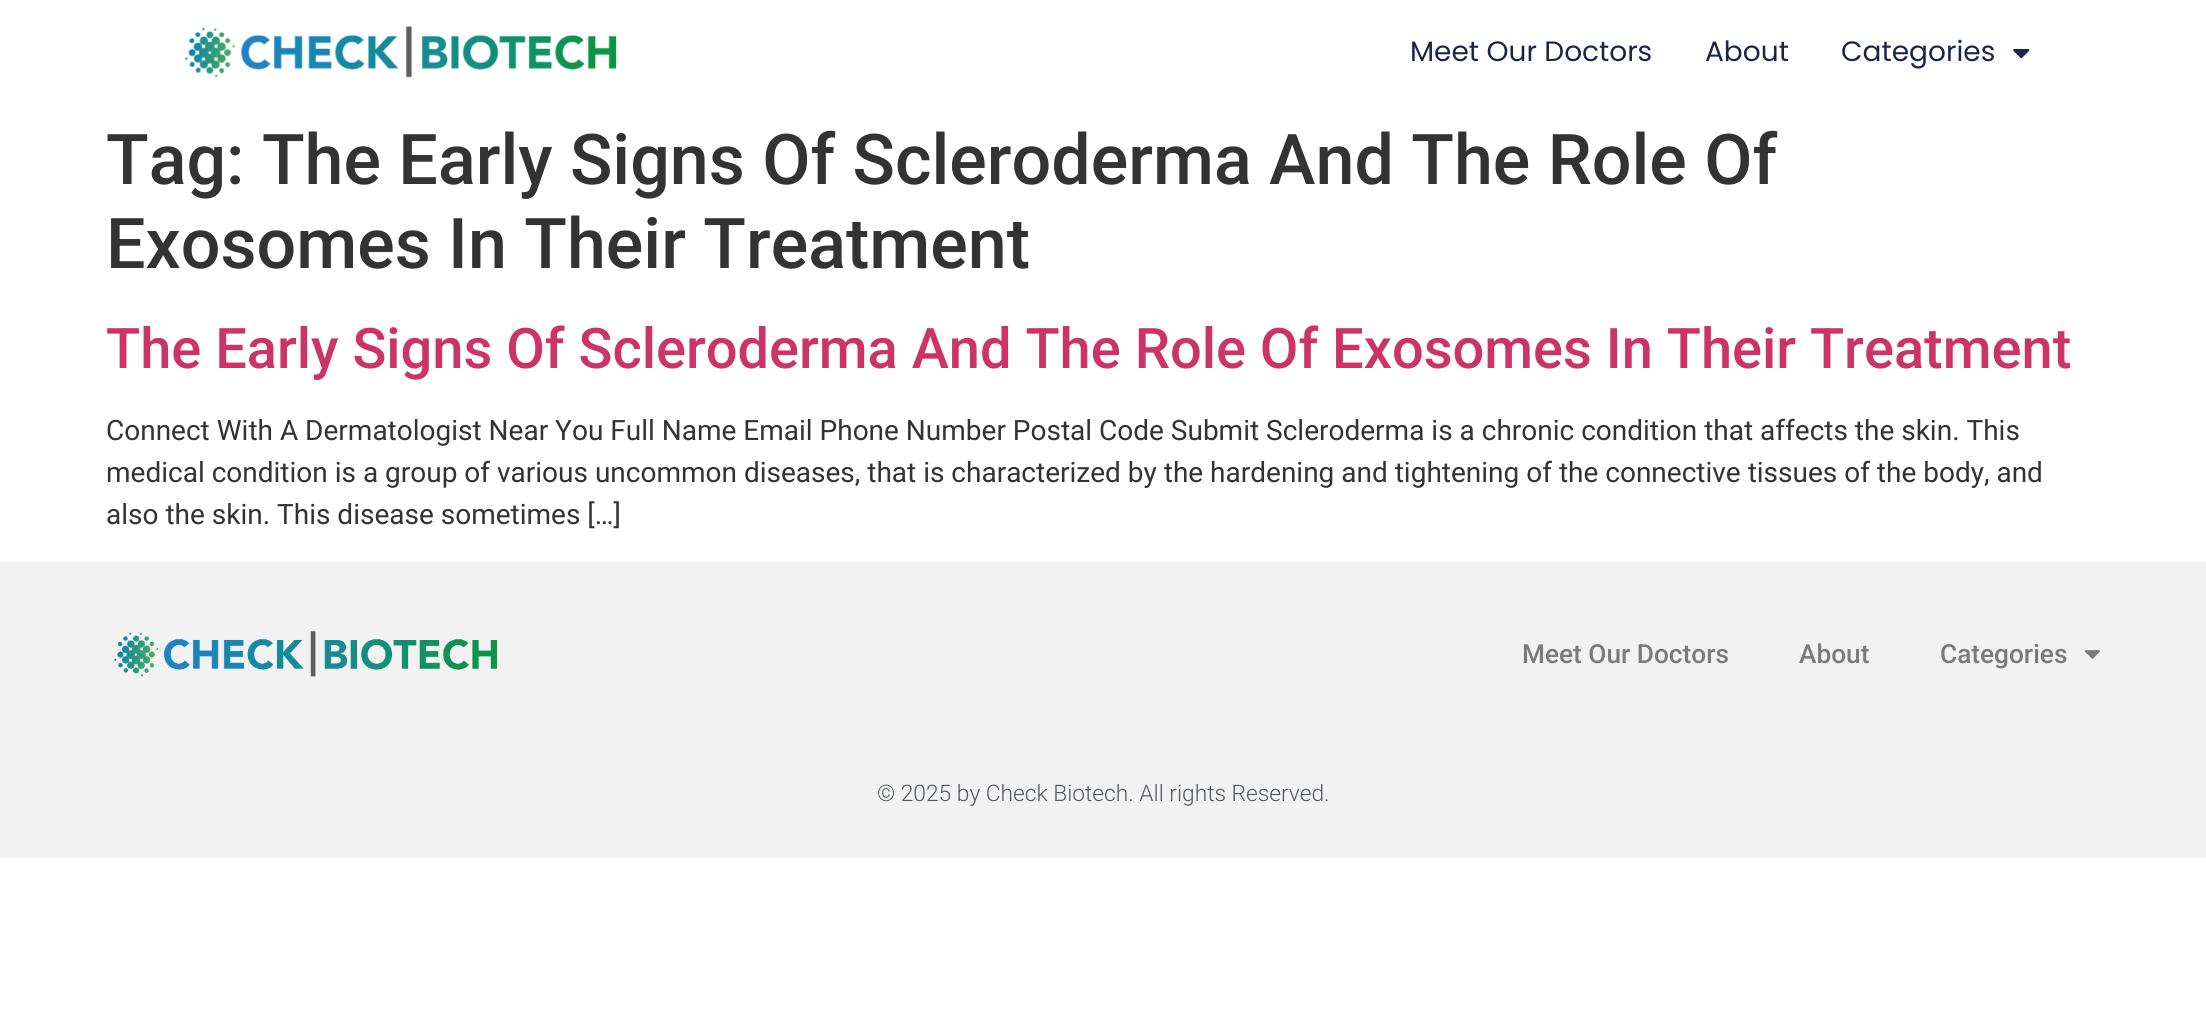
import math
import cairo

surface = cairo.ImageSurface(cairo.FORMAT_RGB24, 2206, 1030)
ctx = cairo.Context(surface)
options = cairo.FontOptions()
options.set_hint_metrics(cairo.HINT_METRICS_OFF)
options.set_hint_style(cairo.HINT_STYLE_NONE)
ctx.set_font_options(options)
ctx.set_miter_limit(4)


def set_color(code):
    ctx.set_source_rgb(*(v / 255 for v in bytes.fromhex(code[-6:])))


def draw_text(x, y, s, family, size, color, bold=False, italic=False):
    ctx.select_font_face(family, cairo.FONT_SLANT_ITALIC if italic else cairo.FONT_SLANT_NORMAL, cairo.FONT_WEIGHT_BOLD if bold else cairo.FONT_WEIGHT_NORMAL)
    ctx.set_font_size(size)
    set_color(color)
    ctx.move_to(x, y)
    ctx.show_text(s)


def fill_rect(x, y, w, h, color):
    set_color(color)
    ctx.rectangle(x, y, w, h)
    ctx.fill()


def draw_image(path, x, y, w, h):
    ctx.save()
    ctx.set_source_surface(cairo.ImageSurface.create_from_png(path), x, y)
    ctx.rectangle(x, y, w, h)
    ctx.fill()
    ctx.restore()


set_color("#ffffff")
ctx.paint()
draw_image("assets/img1.png", 184, 26, 433, 52)
draw_text(1410, 61, "Meet Our Doctors", "Poppins", 28, "#1c244b")
draw_text(1705, 61, "About", "Poppins", 28, "#1c244b")
draw_text(1841, 61, "Categories", "Poppins", 28, "#1c244b")
draw_image("assets/img2.png", 2013, 49, 17, 10)
draw_text(106, 184, "Tag: The Early Signs Of Scleroderma And The Role Of", "Roboto Medium", 70, "#333333")
draw_text(106, 268, "Exosomes In Their Treatment", "Roboto Medium", 70, "#333333")
draw_text(106, 368, "The Early Signs Of Scleroderma And The Role Of Exosomes In Their Treatment", "Roboto Medium", 56, "#cc3366")
draw_text(106, 440, "Connect With A Dermatologist Near You Full Name Email Phone Number Postal Code Submit Scleroderma is a chronic condition that affects the skin. This", "Roboto", 28, "#333333")
draw_text(106, 482, "medical condition is a group of various uncommon diseases, that is characterized by the hardening and tightening of the connective tissues of the body, and", "Roboto", 28, "#333333")
draw_text(106, 524, "also the skin. This disease sometimes […]", "Roboto", 28, "#333333")
fill_rect(0, 562, 2206, 296, "#f2f2f2")
draw_image("assets/img3.png", 114, 630, 383, 47)
draw_text(1522, 663, "Meet Our Doctors", "Roboto Medium", 26.25, "#7a7a7a")
draw_text(1799, 663, "About", "Roboto Medium", 26.25, "#7a7a7a")
draw_text(1940, 663, "Categories", "Roboto Medium", 26.25, "#7a7a7a")
draw_image("assets/img4.png", 2084, 650, 16, 9)
draw_text(877, 801, "© 2025 by Check Biotech. All rights Reserved.", "Roboto Light", 22.75, "#54595f")
surface.write_to_png("output.png")
